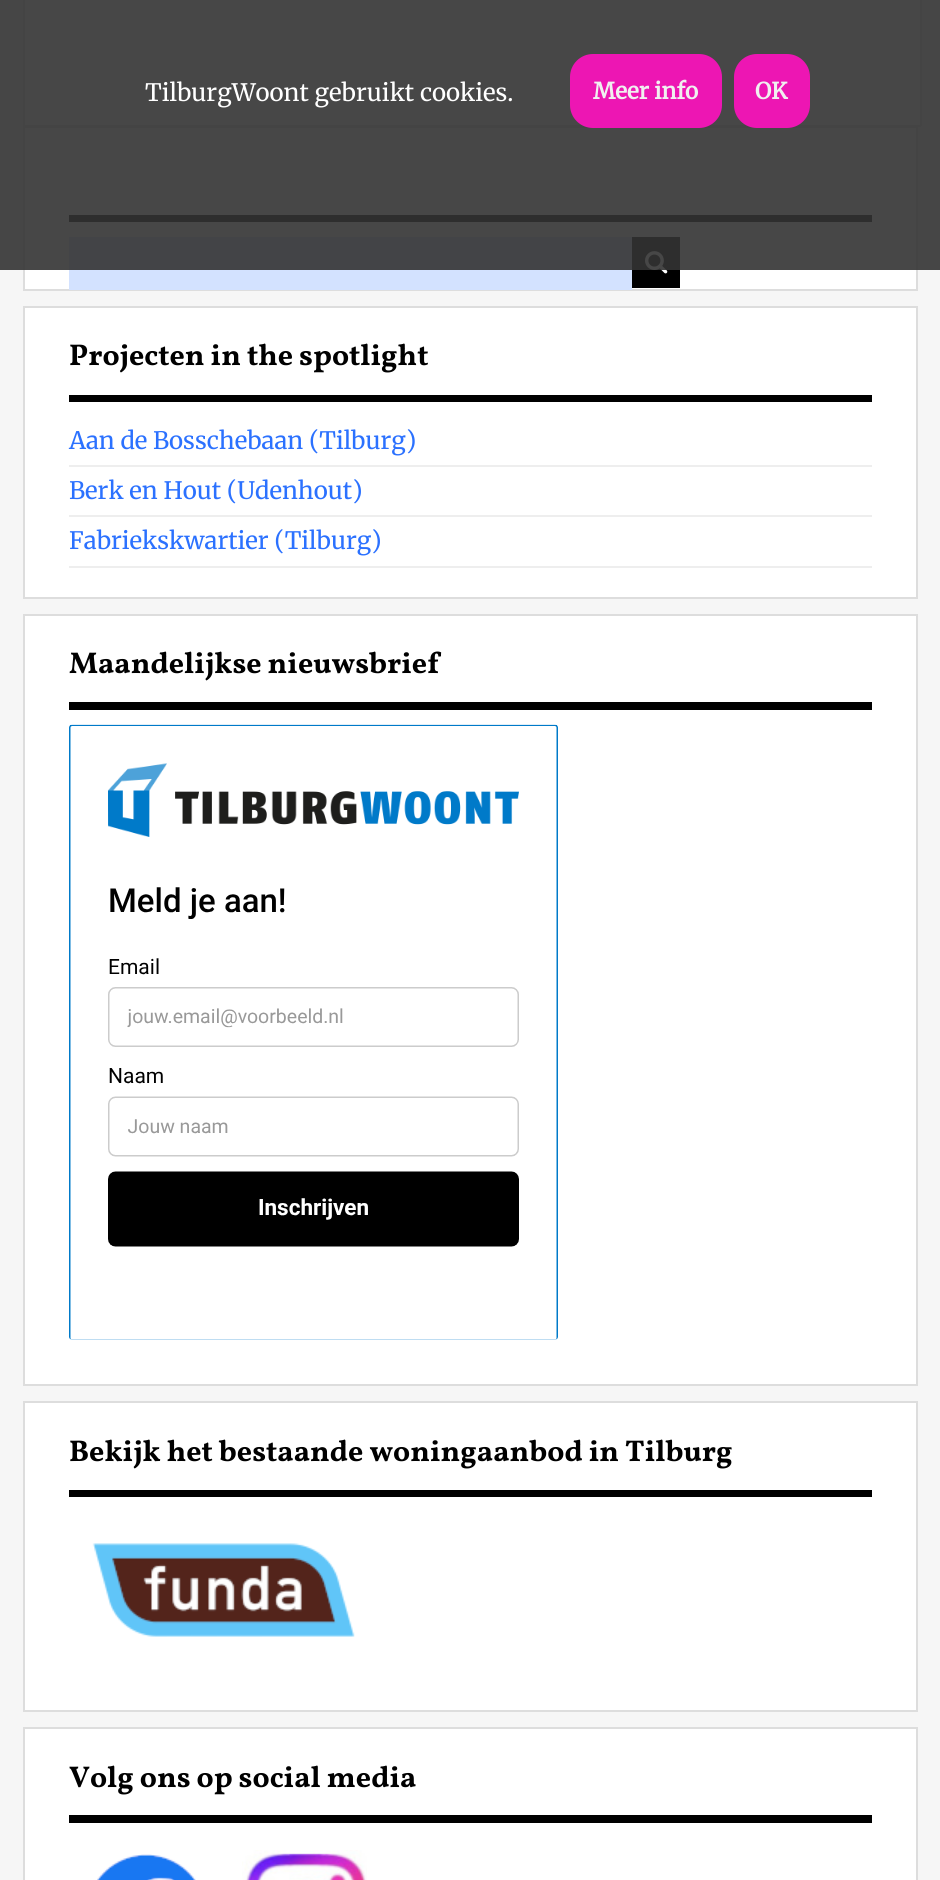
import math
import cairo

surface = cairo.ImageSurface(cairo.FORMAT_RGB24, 940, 1880)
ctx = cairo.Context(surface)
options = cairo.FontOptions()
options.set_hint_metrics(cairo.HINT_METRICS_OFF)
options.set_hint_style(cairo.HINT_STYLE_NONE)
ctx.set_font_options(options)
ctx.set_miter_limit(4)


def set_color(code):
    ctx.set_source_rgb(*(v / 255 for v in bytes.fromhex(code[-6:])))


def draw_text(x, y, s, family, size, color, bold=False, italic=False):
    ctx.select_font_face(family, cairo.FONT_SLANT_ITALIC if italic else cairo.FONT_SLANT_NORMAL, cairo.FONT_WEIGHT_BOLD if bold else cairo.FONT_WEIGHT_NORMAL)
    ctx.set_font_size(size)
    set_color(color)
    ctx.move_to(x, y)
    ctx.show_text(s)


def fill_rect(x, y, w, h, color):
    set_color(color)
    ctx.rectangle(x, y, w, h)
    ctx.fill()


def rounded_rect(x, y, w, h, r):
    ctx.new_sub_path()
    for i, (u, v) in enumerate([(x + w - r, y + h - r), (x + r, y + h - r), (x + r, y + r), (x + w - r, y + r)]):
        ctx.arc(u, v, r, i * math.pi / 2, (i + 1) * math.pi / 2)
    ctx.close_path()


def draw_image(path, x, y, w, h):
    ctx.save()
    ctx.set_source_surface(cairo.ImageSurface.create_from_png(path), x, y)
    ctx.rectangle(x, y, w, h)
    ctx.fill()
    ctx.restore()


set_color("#f6f6f6")
ctx.paint()
fill_rect(25, 0, 895, 125, "#ffffff")
fill_rect(920, 0, 2, 126, "#dddddd")
set_color("#ffffff")
ctx.rectangle(24, 127, 893, 163)
ctx.fill_preserve()
set_color("#dddddd")
ctx.stroke()
fill_rect(23, 125, 898, 2, "#dddddd")
fill_rect(23, 0, 2, 126, "#dddddd")
fill_rect(69, 215, 803, 7, "#000000")
fill_rect(69, 237, 563, 53, "#d3e2ff")
fill_rect(632, 237, 48, 51, "#000000")
draw_image("assets/img1.png", 645, 251, 23, 23)
ctx.set_source_rgba(0.2, 0.2, 0.2, 0.9)
ctx.rectangle(0, 0, 940, 270)
ctx.fill()
draw_text(145, 101, "TilburgWoont gebruikt cookies.", "Merriweather Light", 24, "#ffffff")
ctx.set_source_rgba(1, 0.067, 0.749, 0.9)
rounded_rect(570, 54, 152, 74, 23)
ctx.fill()
draw_text(593, 99, "Meer info", "Merriweather", 22.5, "#f0f0f0", bold=True)
ctx.set_source_rgba(1, 0.067, 0.749, 0.9)
rounded_rect(734, 54, 76, 74, 23)
ctx.fill()
draw_text(755, 99, "OK", "Merriweather", 22.5, "#f0f0f0", bold=True)
set_color("#ffffff")
ctx.rectangle(24, 307, 893, 291)
ctx.fill_preserve()
set_color("#dddddd")
ctx.stroke()
fill_rect(69, 395, 803, 7, "#000000")
draw_text(69, 365, "Projecten in the spotlight", "Vollkorn", 30, "#000000", bold=True)
fill_rect(69, 465, 803, 2, "#eeeeee")
draw_text(69, 449, "Aan de Bosschebaan (Tilburg)", "Merriweather Light", 24, "#2b71ff")
fill_rect(69, 515, 803, 2, "#eeeeee")
draw_text(69, 499, "Berk en Hout (Udenhout)", "Merriweather Light", 24, "#2b71ff")
fill_rect(69, 566, 803, 2, "#eeeeee")
draw_text(69, 549, "Fabriekskwartier (Tilburg)", "Merriweather Light", 24, "#2b71ff")
set_color("#ffffff")
ctx.rectangle(24, 615, 893, 770)
ctx.fill_preserve()
set_color("#dddddd")
ctx.stroke()
fill_rect(69, 702, 803, 8, "#000000")
draw_text(69, 673, "Maandelijkse nieuwsbrief", "Vollkorn", 30, "#000000", bold=True)
draw_image("assets/img2.png", 69, 724, 489, 616)
set_color("#ffffff")
ctx.rectangle(24, 1402, 893, 309)
ctx.fill_preserve()
set_color("#dddddd")
ctx.stroke()
fill_rect(69, 1490, 803, 7, "#000000")
draw_text(69, 1461, "Bekijk het bestaande woningaanbod in Tilburg", "Vollkorn", 30, "#000000", bold=True)
draw_image("assets/img3.png", 92, 1543, 263, 94)
set_color("#ffffff")
ctx.rectangle(24, 1728, 893, 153)
ctx.fill_preserve()
set_color("#dddddd")
ctx.stroke()
fill_rect(69, 1815, 803, 8, "#000000")
draw_text(69, 1787, "Volg ons op social media", "Vollkorn", 30, "#000000", bold=True)
draw_image("assets/img4.png", 97, 1854, 99, 26)
draw_image("assets/img5.png", 242, 1850, 125, 30)
surface.write_to_png("output.png")
